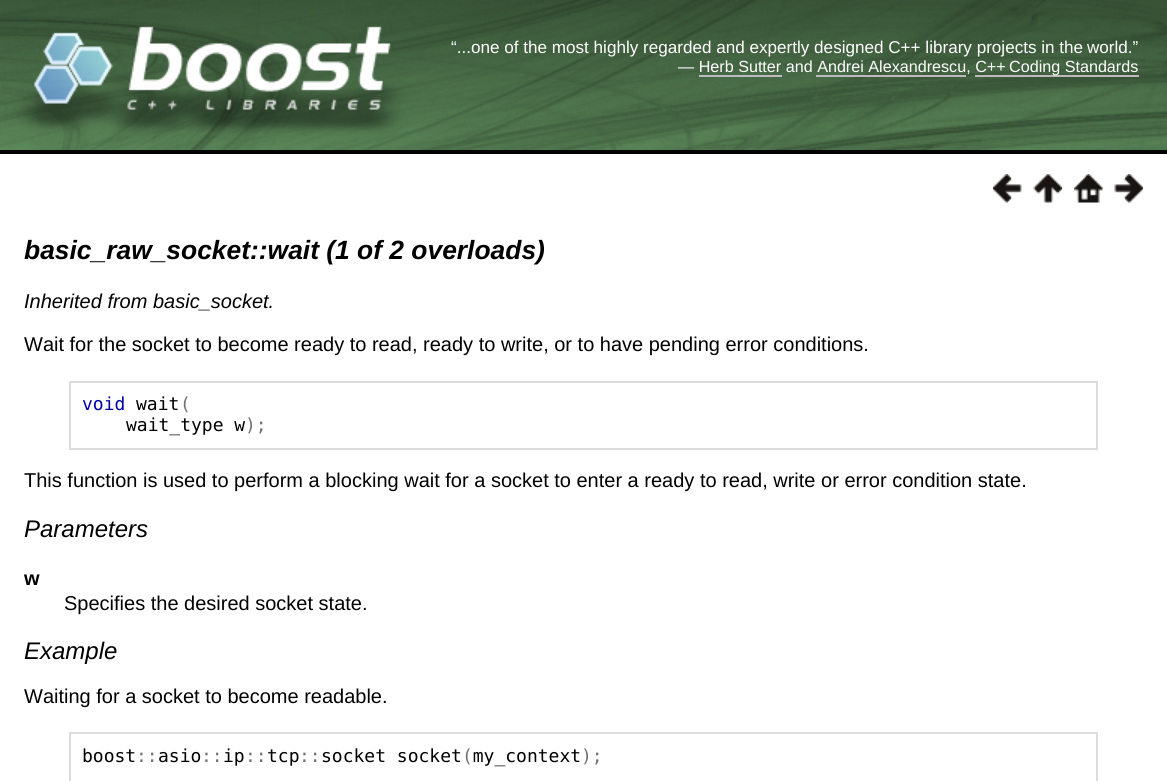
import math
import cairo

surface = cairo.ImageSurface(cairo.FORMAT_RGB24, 1167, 781)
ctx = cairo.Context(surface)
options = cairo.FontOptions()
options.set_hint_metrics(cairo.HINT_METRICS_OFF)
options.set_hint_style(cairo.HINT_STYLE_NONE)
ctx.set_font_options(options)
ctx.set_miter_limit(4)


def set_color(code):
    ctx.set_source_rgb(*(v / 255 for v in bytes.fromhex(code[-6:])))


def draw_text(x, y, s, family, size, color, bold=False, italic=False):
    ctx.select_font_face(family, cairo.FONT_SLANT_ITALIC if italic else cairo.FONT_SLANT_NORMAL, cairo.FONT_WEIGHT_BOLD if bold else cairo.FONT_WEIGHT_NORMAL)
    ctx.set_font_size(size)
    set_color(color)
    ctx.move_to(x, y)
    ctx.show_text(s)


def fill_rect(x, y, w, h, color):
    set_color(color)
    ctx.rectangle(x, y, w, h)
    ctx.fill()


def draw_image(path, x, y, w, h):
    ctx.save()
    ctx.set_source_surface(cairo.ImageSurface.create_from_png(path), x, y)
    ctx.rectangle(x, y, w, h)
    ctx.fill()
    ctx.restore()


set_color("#ffffff")
ctx.paint()
fill_rect(0, 150, 1167, 4, "#000000")
draw_image("assets/img1.png", 0, 0, 1167, 150)
draw_text(451, 53, "“...one of the most highly regarded and expertly designed C++ library projects in the", "Liberation Sans", 17.1, "#ffffff")
draw_text(1087, 53, "world.”", "Liberation Sans", 17.1, "#ffffff")
draw_text(678, 72, "— Herb Sutter and Andrei Alexandrescu, C++", "Liberation Sans", 16.15, "#ffffff")
fill_rect(975, 75, 164, 2, "#bbbbbb")
draw_text(1009, 72, "Coding Standards", "Liberation Sans", 16.15, "#ffffff")
fill_rect(699, 75, 83, 2, "#bbbbbb")
fill_rect(816, 75, 150, 2, "#bbbbbb")
draw_image("assets/img2.png", 993, 174, 29, 29)
draw_image("assets/img3.png", 1033, 174, 29, 29)
draw_image("assets/img4.png", 1074, 174, 29, 29)
draw_image("assets/img5.png", 1114, 174, 29, 29)
draw_text(24, 259, "basic_raw_socket::wait (1 of 2 overloads)", "Liberation Sans", 26.4, "#000000", bold=True, italic=True)
draw_text(24, 308, "Inherited from basic_socket.", "Liberation Sans", 20, "#000000", italic=True)
draw_text(24, 351, "Wait for the socket to become ready to read, ready to write, or to have pending error conditions.", "Liberation Sans", 20, "#000000")
ctx.rectangle(70, 382, 1027, 67)
set_color("#dcdcdc")
ctx.stroke()
draw_text(82, 410, "void", "DejaVu Sans Mono", 18, "#0000aa")
draw_text(136, 410, "wait", "DejaVu Sans Mono", 18, "#000000")
draw_text(180, 410, "(", "DejaVu Sans Mono", 18, "#707070")
draw_text(126, 431, "wait_type w", "DejaVu Sans Mono", 18, "#000000")
draw_text(245, 431, ");", "DejaVu Sans Mono", 18, "#707070")
draw_text(24, 487, "This function is used to perform a blocking wait for a socket to enter a ready to read, write or error condition state.", "Liberation Sans", 20, "#000000")
draw_text(24, 537, "Parameters", "Liberation Sans", 24, "#000000", italic=True)
draw_text(24, 585, "w", "Liberation Sans", 20, "#000000", bold=True)
draw_text(64, 610, "Specifies the desired socket state.", "Liberation Sans", 20, "#000000")
draw_text(24, 659, "Example", "Liberation Sans", 24, "#000000", italic=True)
draw_text(24, 703, "Waiting for a socket to become readable.", "Liberation Sans", 20, "#000000")
ctx.rectangle(70, 733, 1027, 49)
set_color("#dcdcdc")
ctx.stroke()
draw_text(82, 762, "boost", "DejaVu Sans Mono", 18, "#000000")
draw_text(158, 762, "asio", "DejaVu Sans Mono", 18, "#000000")
draw_text(223, 762, "ip", "DejaVu Sans Mono", 18, "#000000")
draw_text(321, 762, "socket socket my_context", "DejaVu Sans Mono", 18, "#000000")
draw_text(136, 762, "::", "DejaVu Sans Mono", 18, "#707070")
draw_text(201, 762, "::", "DejaVu Sans Mono", 18, "#707070")
draw_text(245, 762, "::", "DejaVu Sans Mono", 18, "#707070")
draw_text(267, 762, "tcp", "DejaVu Sans Mono", 18, "#000000")
draw_text(299, 762, "::", "DejaVu Sans Mono", 18, "#707070")
draw_text(462, 762, "(", "DejaVu Sans Mono", 18, "#707070")
draw_text(581, 762, ");", "DejaVu Sans Mono", 18, "#707070")
surface.write_to_png("output.png")
